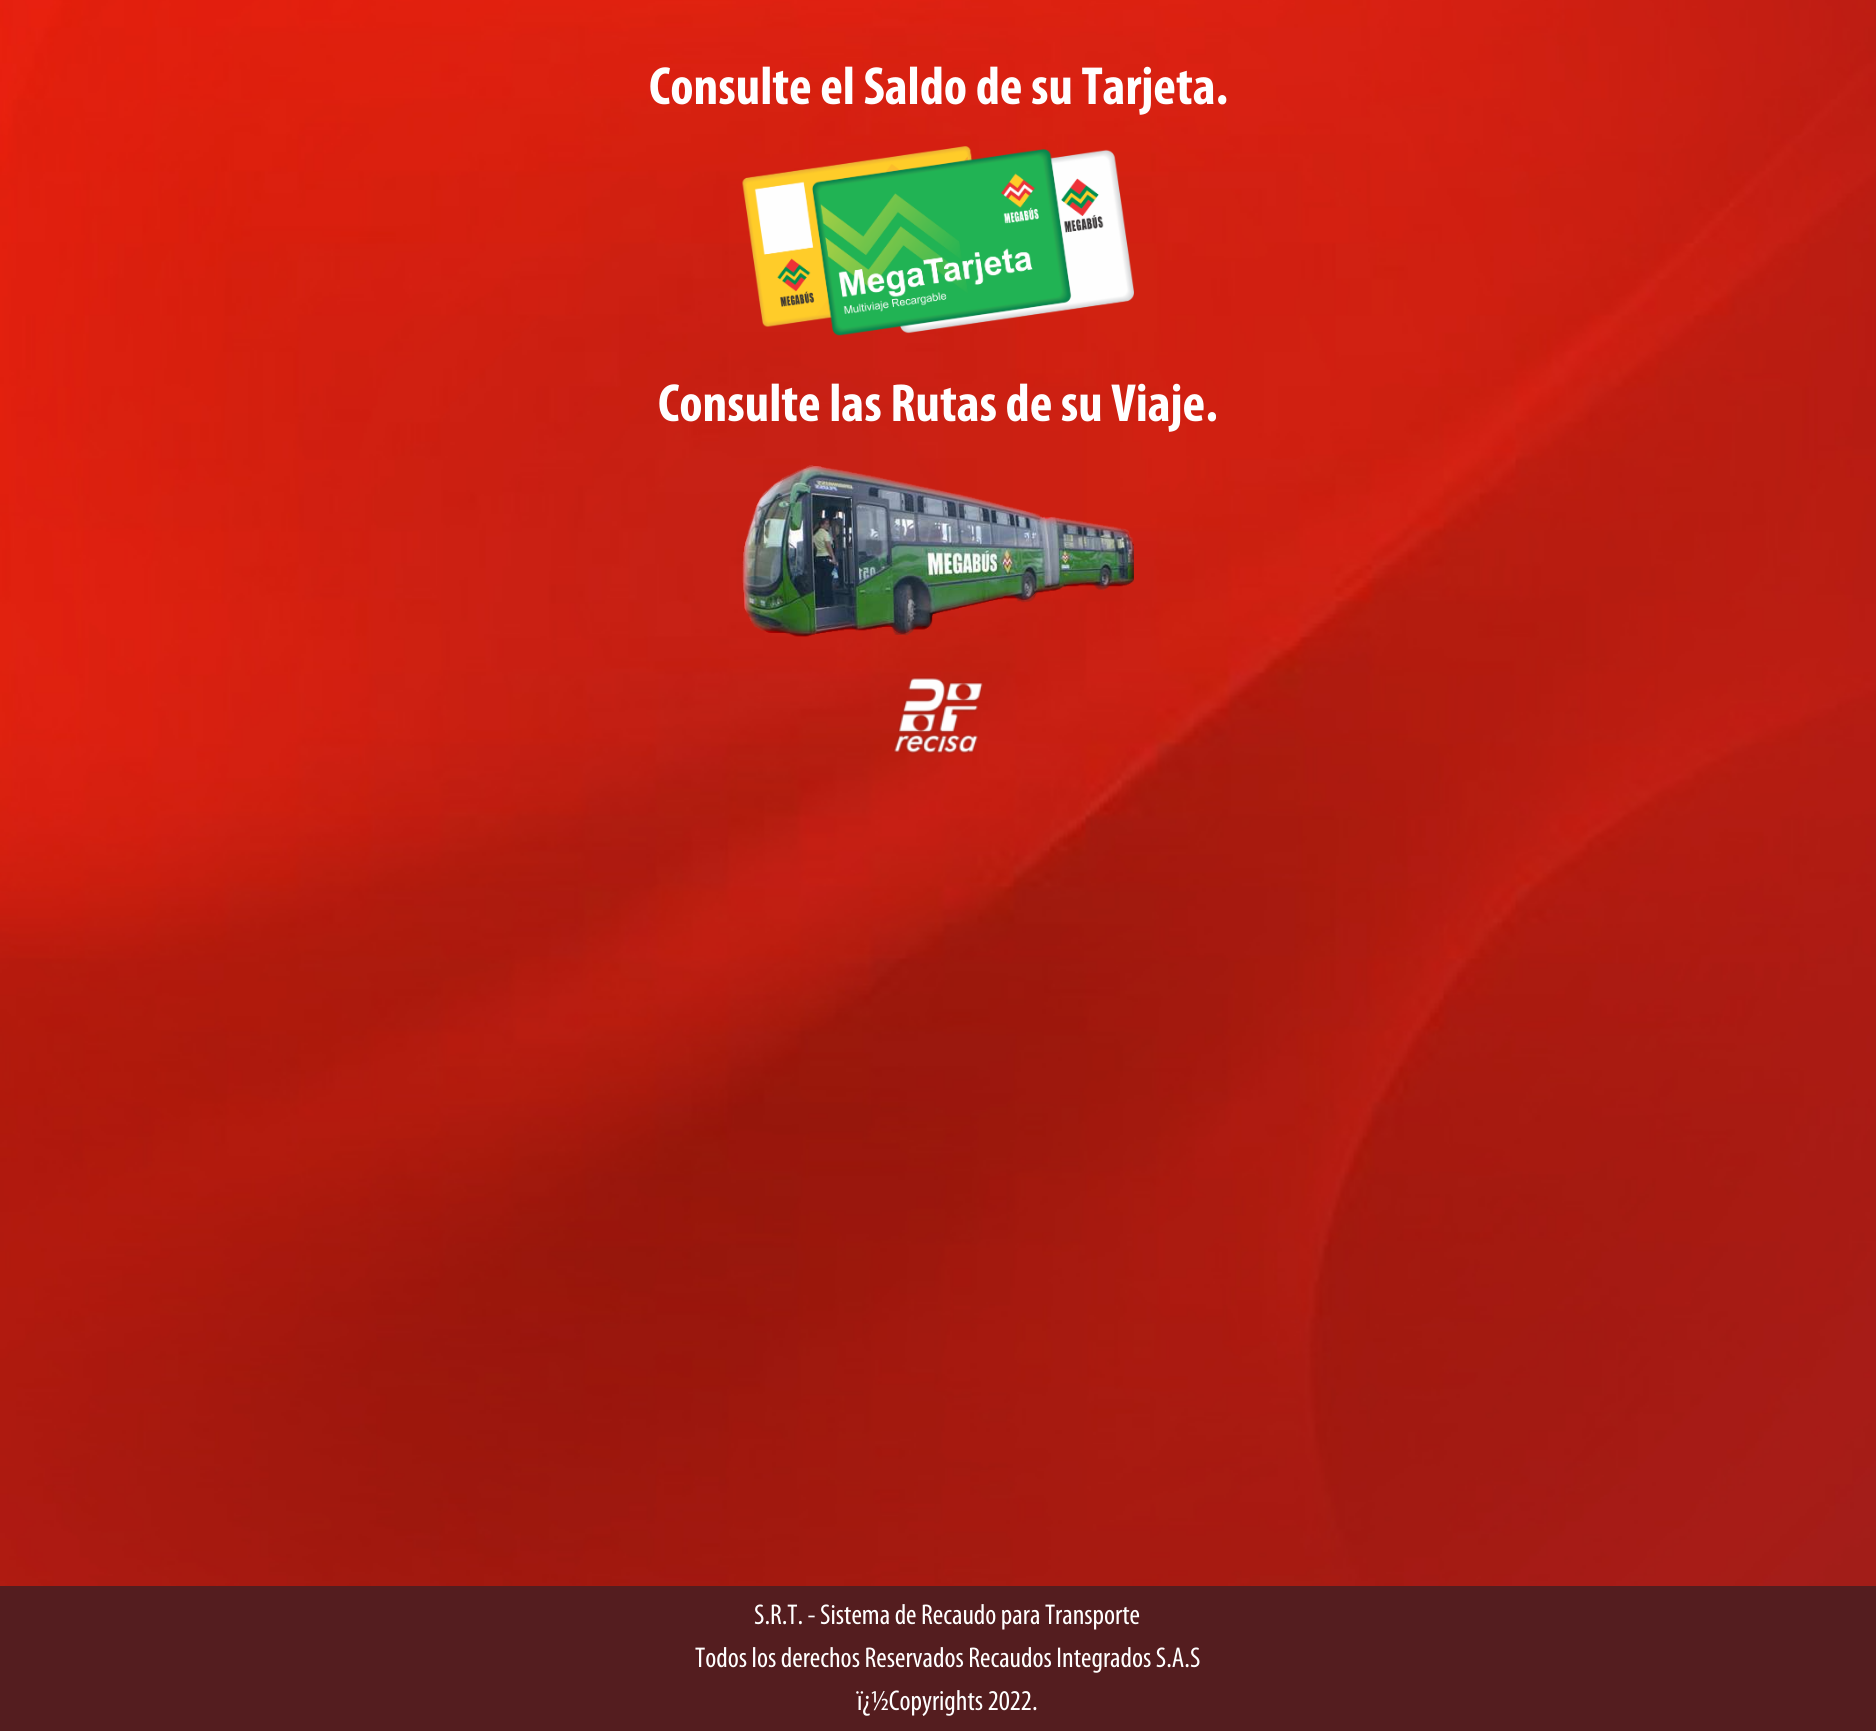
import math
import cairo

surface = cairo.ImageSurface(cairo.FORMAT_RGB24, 1876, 1731)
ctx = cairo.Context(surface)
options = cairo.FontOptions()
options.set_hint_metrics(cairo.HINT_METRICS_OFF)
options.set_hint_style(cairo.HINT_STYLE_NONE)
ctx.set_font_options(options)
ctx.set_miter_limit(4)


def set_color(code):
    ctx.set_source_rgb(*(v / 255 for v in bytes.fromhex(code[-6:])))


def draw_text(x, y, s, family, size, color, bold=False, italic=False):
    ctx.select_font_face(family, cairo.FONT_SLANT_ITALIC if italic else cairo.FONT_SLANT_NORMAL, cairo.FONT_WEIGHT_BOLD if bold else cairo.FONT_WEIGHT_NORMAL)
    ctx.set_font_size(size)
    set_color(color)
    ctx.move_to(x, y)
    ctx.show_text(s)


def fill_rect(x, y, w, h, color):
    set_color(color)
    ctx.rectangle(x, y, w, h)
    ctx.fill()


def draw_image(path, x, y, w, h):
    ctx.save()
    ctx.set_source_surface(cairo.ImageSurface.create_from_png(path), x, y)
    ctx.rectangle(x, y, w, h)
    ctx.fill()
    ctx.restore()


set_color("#ffffff")
ctx.paint()
draw_image("assets/img1.png", 0, 0, 1876, 1586)
draw_text(649, 104, "Consulte el Saldo de su Tarjeta.", "Myriad", 54, "#ffffff", bold=True)
draw_image("assets/img2.png", 742, 146, 392, 190)
draw_text(658, 421, "Consulte las Rutas de su Viaje.", "Myriad", 54, "#ffffff", bold=True)
draw_image("assets/img3.png", 742, 465, 392, 172)
draw_image("assets/img4.png", 893, 677, 90, 77)
fill_rect(0, 1586, 1876, 145, "#541d1f")
draw_text(754, 1624, "S.R.T. - Sistema de Recaudo para Transporte", "Myriad", 28.75, "#ffffff")
draw_text(695, 1667, "Todos los derechos Reservados Recaudos Integrados S.A.S", "Myriad", 28.75, "#ffffff")
draw_text(857, 1710, "ï¿½Copyrights 2022.", "Myriad", 28.75, "#ffffff")
surface.write_to_png("output.png")
